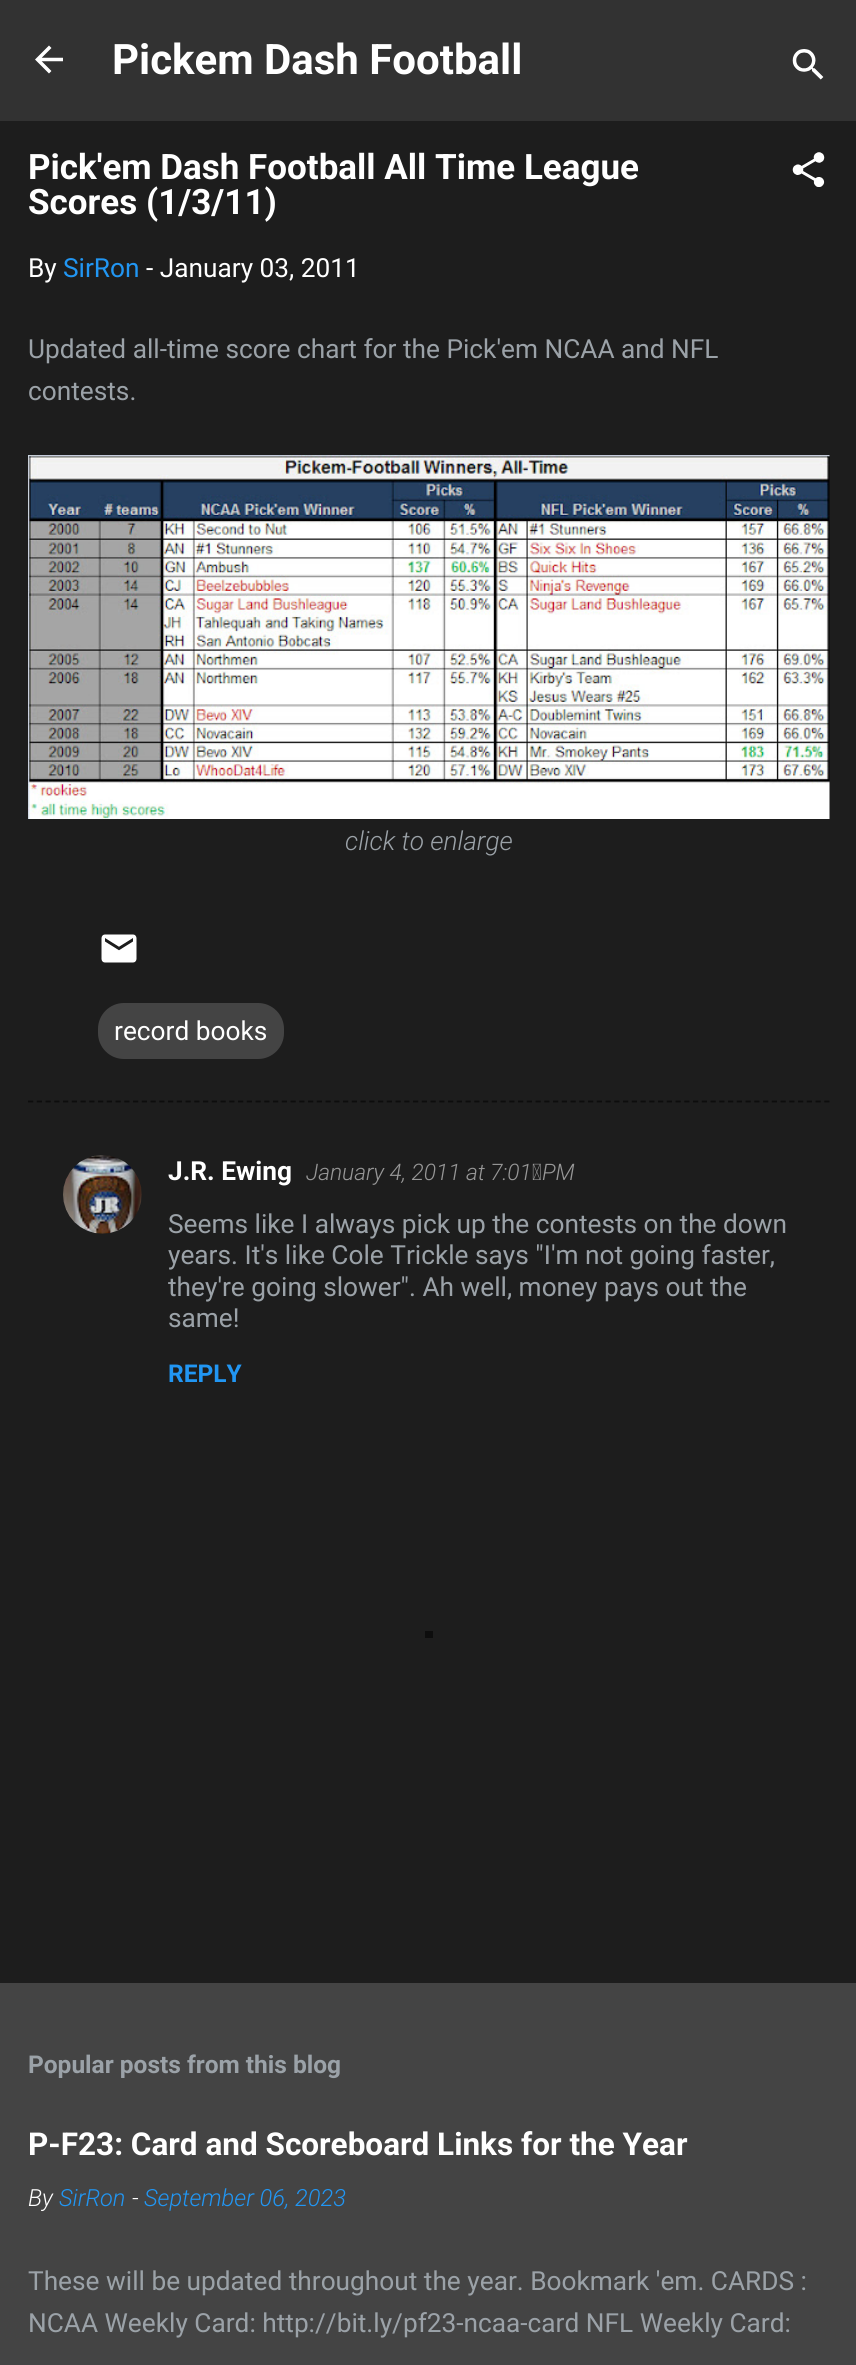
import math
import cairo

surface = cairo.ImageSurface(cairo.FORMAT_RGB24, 856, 2365)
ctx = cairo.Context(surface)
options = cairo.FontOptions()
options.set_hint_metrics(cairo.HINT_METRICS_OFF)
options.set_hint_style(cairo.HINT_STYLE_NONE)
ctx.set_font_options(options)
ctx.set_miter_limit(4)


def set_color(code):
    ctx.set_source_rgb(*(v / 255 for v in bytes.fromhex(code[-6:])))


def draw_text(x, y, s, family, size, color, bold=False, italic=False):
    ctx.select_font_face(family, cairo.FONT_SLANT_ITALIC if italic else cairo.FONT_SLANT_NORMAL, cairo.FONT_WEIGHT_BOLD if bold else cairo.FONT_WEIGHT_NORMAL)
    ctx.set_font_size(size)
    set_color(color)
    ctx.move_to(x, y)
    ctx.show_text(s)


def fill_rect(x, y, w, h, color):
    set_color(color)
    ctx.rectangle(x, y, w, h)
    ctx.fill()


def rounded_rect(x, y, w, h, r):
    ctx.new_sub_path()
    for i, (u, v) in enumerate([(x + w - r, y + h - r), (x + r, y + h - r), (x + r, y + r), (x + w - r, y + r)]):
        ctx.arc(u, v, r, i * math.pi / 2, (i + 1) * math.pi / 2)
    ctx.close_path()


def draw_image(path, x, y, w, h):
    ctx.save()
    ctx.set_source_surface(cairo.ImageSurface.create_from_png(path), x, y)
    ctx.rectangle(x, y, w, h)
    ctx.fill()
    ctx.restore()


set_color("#444444")
ctx.paint()
fill_rect(0, 0, 856, 121, "#323232")
draw_image("assets/img1.png", 35, 45, 28, 29)
draw_text(112, 74, "Pickem Dash Football", "Roboto", 42, "#ffffff", bold=True)
draw_image("assets/img2.png", 792, 49, 32, 31)
fill_rect(0, 121, 856, 1862, "#1d1d1d")
draw_text(28, 179, "Pick'em Dash Football All Time League", "Roboto", 35, "#ffffff", bold=True)
draw_text(28, 214, "Scores (1/3/11)", "Roboto", 35, "#ffffff", bold=True)
draw_image("assets/img3.png", 792, 152, 33, 35)
draw_text(28, 277, "By", "Roboto", 26.25, "#ffffff")
draw_text(63, 277, "SirRon", "Roboto", 26.25, "#2196f3")
draw_text(146, 277, "- January 03, 2011", "Roboto", 26.25, "#ffffff")
draw_text(28, 358, "Updated all-time score chart for the Pick'em NCAA and NFL", "Roboto", 26.25, "#9ba2a8")
draw_text(28, 400, "contests.", "Roboto", 26.25, "#9ba2a8")
draw_image("assets/img4.png", 28, 455, 802, 364)
draw_text(345, 850, "click to enlarge", "Roboto Light", 26.25, "#9ba2a8", italic=True)
draw_image("assets/img5.png", 101, 934, 36, 29)
set_color("#444444")
rounded_rect(99, 1004, 184, 54, 25)
ctx.fill_preserve()
ctx.stroke()
draw_text(114, 1040, "record books", "Roboto", 26.25, "#ffffff")
ctx.new_path()
ctx.move_to(28, 1101.5)
ctx.line_to(829.5, 1101.5)
set_color("#0d0d0d")
ctx.set_line_width(1.8)
ctx.set_dash([5.25, 3.5])
ctx.stroke()
draw_image("assets/img6.png", 63, 1155, 79, 79)
draw_text(168, 1180, "J.R. Ewing", "Roboto", 26.25, "#ffffff", bold=True)
draw_text(306, 1180, "January 4, 2011 at 7:01 PM", "Roboto Light", 22.75, "#979797", italic=True)
draw_text(168, 1233, "Seems like I always pick up the contests on the down", "Roboto", 26.25, "#9ba2a8")
draw_text(168, 1264, "years. It's like Cole Trickle says \"I'm not going faster,", "Roboto", 26.25, "#9ba2a8")
draw_text(168, 1296, "they're going slower\". Ah well, money pays out the", "Roboto", 26.25, "#9ba2a8")
draw_text(168, 1327, "same!", "Roboto", 26.25, "#9ba2a8")
draw_text(168, 1382, "REPLY", "Roboto", 24.5, "#2196f3", bold=True)
draw_text(28, 2073, "Popular posts from this blog", "Roboto", 24.5, "#9ba2a8", bold=True)
draw_text(28, 2155, "P-F23: Card and Scoreboard Links for the Year", "Roboto", 31.5, "#ffffff", bold=True)
draw_text(28, 2206, "By", "Roboto Light", 23.6, "#ffffff", italic=True)
draw_text(59, 2206, "SirRon", "Roboto Light", 23.6, "#2196f3", italic=True)
draw_text(132, 2206, "-", "Roboto Light", 23.6, "#ffffff", italic=True)
draw_text(144, 2206, "September 06, 2023", "Roboto Light", 23.6, "#2196f3", italic=True)
draw_text(28, 2290, "These will be updated throughout the year. Bookmark 'em. CARDS :", "Roboto", 26.25, "#9ba2a8")
draw_text(28, 2332, "NCAA Weekly Card: http://bit.ly/pf23-ncaa-card NFL Weekly Card:", "Roboto", 26.25, "#9ba2a8")
fill_rect(425, 1631, 8, 7, "#0d0d0d")
surface.write_to_png("output.png")
